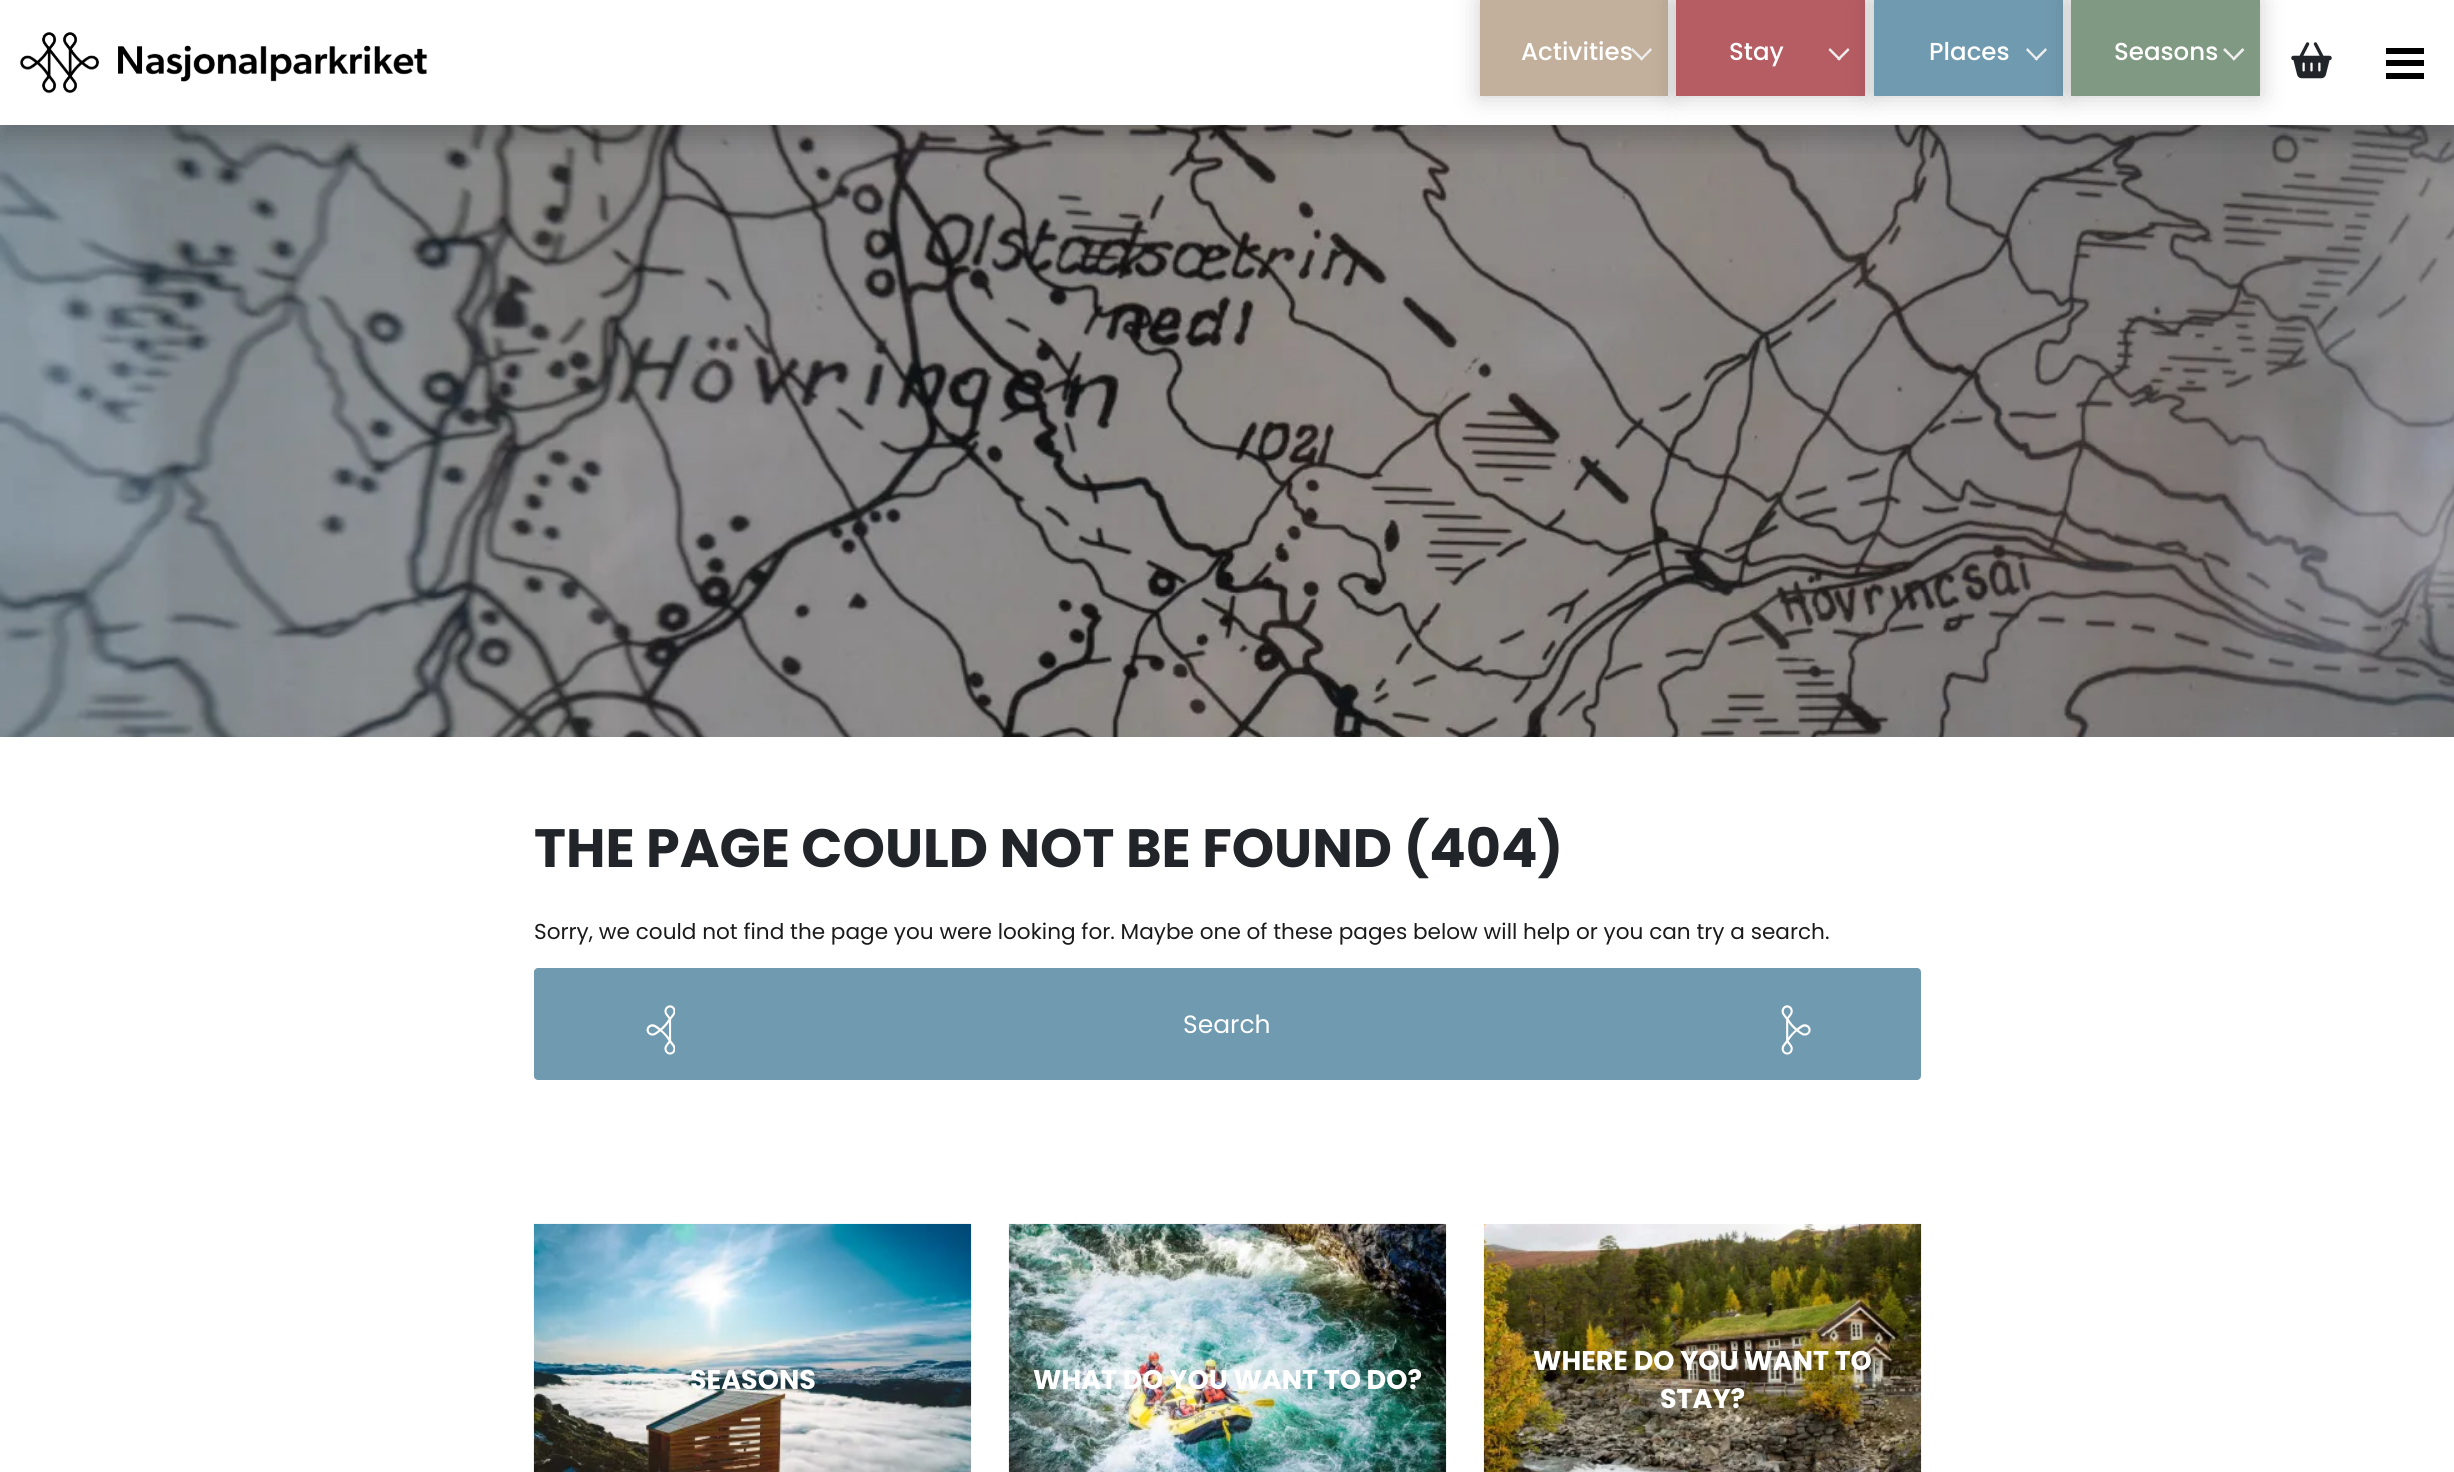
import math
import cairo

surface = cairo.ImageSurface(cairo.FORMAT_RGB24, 2454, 1472)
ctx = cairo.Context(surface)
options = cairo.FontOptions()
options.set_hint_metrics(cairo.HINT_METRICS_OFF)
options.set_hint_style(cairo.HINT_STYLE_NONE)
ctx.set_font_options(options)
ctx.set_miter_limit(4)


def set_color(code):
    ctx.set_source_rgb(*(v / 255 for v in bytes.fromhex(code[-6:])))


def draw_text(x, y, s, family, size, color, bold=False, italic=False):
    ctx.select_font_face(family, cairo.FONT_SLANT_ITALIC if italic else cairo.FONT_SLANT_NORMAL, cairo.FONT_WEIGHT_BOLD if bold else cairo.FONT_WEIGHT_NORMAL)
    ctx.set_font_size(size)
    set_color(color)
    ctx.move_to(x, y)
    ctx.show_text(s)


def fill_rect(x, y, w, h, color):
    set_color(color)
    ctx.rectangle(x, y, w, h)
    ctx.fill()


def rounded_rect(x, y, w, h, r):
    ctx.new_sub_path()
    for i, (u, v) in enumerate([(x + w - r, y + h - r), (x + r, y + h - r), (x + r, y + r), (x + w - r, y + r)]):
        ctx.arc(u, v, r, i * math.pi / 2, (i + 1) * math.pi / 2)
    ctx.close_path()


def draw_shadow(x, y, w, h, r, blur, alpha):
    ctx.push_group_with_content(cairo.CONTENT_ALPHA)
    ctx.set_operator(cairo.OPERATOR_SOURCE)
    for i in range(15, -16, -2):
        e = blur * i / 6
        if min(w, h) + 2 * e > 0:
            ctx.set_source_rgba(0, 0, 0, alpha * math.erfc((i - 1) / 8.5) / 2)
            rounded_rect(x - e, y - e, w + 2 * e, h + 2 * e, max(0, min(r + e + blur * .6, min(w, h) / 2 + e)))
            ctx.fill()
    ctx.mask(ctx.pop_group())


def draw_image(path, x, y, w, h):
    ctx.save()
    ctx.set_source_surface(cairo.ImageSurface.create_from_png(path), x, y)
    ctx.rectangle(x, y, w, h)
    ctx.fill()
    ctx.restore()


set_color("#ffffff")
ctx.paint()
draw_image("assets/img3.png", 0, 125, 2454, 612)
ctx.save()
ctx.rectangle(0, 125, 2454, 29)
ctx.clip()
set_color("#000000")
draw_shadow(0, 13, 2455, 125, 0, 12.5, 0.2)
ctx.restore()
draw_image("assets/img1.png", 20, 32, 408, 62)
set_color("#000000")
draw_shadow(1480, 0, 188, 96, 0, 12.5, 0.2)
fill_rect(1480, 0, 188, 96, "#c2b09c")
draw_text(1521, 60, "Activities", "Poppins Medium", 24.5, "#ffffff")
set_color("#eeeeee")
ctx.new_path()
ctx.move_to(1650.5, 48)
ctx.line_to(1652, 50)
ctx.line_to(1641.5, 60.5)
ctx.line_to(1640, 59)
ctx.close_path()
ctx.fill()
ctx.new_path()
ctx.move_to(1632.5, 48)
ctx.line_to(1643.5, 59)
ctx.line_to(1641.5, 60.5)
ctx.line_to(1631, 50)
ctx.close_path()
ctx.fill()
set_color("#000000")
draw_shadow(1676, 0, 189, 96, 0, 12.5, 0.2)
fill_rect(1676, 0, 189, 96, "#b65c63")
draw_text(1729, 60, "Stay", "Poppins Medium", 24.5, "#ffffff")
set_color("#eeeeee")
ctx.new_path()
ctx.move_to(1848, 48)
ctx.line_to(1849.5, 50)
ctx.line_to(1839, 60.5)
ctx.line_to(1837, 59)
ctx.close_path()
ctx.fill()
ctx.new_path()
ctx.move_to(1830, 48)
ctx.line_to(1841, 59)
ctx.line_to(1839, 60.5)
ctx.line_to(1828.5, 50)
ctx.close_path()
ctx.fill()
set_color("#000000")
draw_shadow(1874, 0, 189, 96, 0, 12.5, 0.2)
fill_rect(1874, 0, 189, 96, "#709ab0")
draw_text(1929, 60, "Places", "Poppins Medium", 24.5, "#ffffff")
set_color("#eeeeee")
ctx.new_path()
ctx.move_to(2045.5, 48)
ctx.line_to(2047, 50)
ctx.line_to(2036.5, 60.5)
ctx.line_to(2034.5, 59)
ctx.close_path()
ctx.fill()
ctx.new_path()
ctx.move_to(2027.5, 48)
ctx.line_to(2038, 59)
ctx.line_to(2036.5, 60.5)
ctx.line_to(2026, 50)
ctx.close_path()
ctx.fill()
draw_image("assets/img2.png", 2291, 42, 41, 37)
set_color("#000000")
draw_shadow(2071, 0, 189, 96, 0, 12.5, 0.2)
fill_rect(2071, 0, 189, 96, "#809982")
draw_text(2114, 60, "Seasons", "Poppins Medium", 24.5, "#ffffff")
set_color("#eeeeee")
ctx.new_path()
ctx.move_to(2242.5, 48)
ctx.line_to(2244.5, 50)
ctx.line_to(2234, 60.5)
ctx.line_to(2232, 59)
ctx.close_path()
ctx.fill()
ctx.new_path()
ctx.move_to(2225, 48)
ctx.line_to(2235.5, 59)
ctx.line_to(2234, 60.5)
ctx.line_to(2223, 50)
ctx.close_path()
ctx.fill()
fill_rect(2386, 48, 38, 6, "#000000")
fill_rect(2386, 60, 38, 6, "#000000")
fill_rect(2386, 73, 38, 6, "#000000")
draw_text(534, 867, "THE PAGE COULD NOT BE FOUND (404)", "Poppins", 54, "#212529", bold=True)
draw_text(534, 939, "Sorry, we could not find the page you were looking for. Maybe one of these pages below will help or you can try a search.", "Poppins", 21.6, "#1a1a1a")
set_color("#709ab0")
rounded_rect(534, 968, 1387, 112, 4)
ctx.fill()
draw_image("assets/img4.png", 646, 1005, 29, 50)
draw_text(1183, 1033, "Search", "Poppins", 25, "#ffffff")
draw_image("assets/img5.png", 1781, 1005, 30, 50)
draw_image("assets/img6.png", 533, 1223, 439, 249)
draw_text(690, 1389, "SEASONS", "Poppins", 27, "#ffffff", bold=True)
draw_image("assets/img7.png", 1008, 1223, 439, 249)
draw_text(1033, 1389, "WHAT DO YOU WANT TO DO?", "Poppins", 27, "#ffffff", bold=True)
draw_image("assets/img8.png", 1483, 1223, 439, 249)
draw_text(1533, 1370, "WHERE DO YOU WANT TO", "Poppins", 27, "#ffffff", bold=True)
draw_text(1660, 1408, "STAY?", "Poppins", 27, "#ffffff", bold=True)
surface.write_to_png("output.png")
